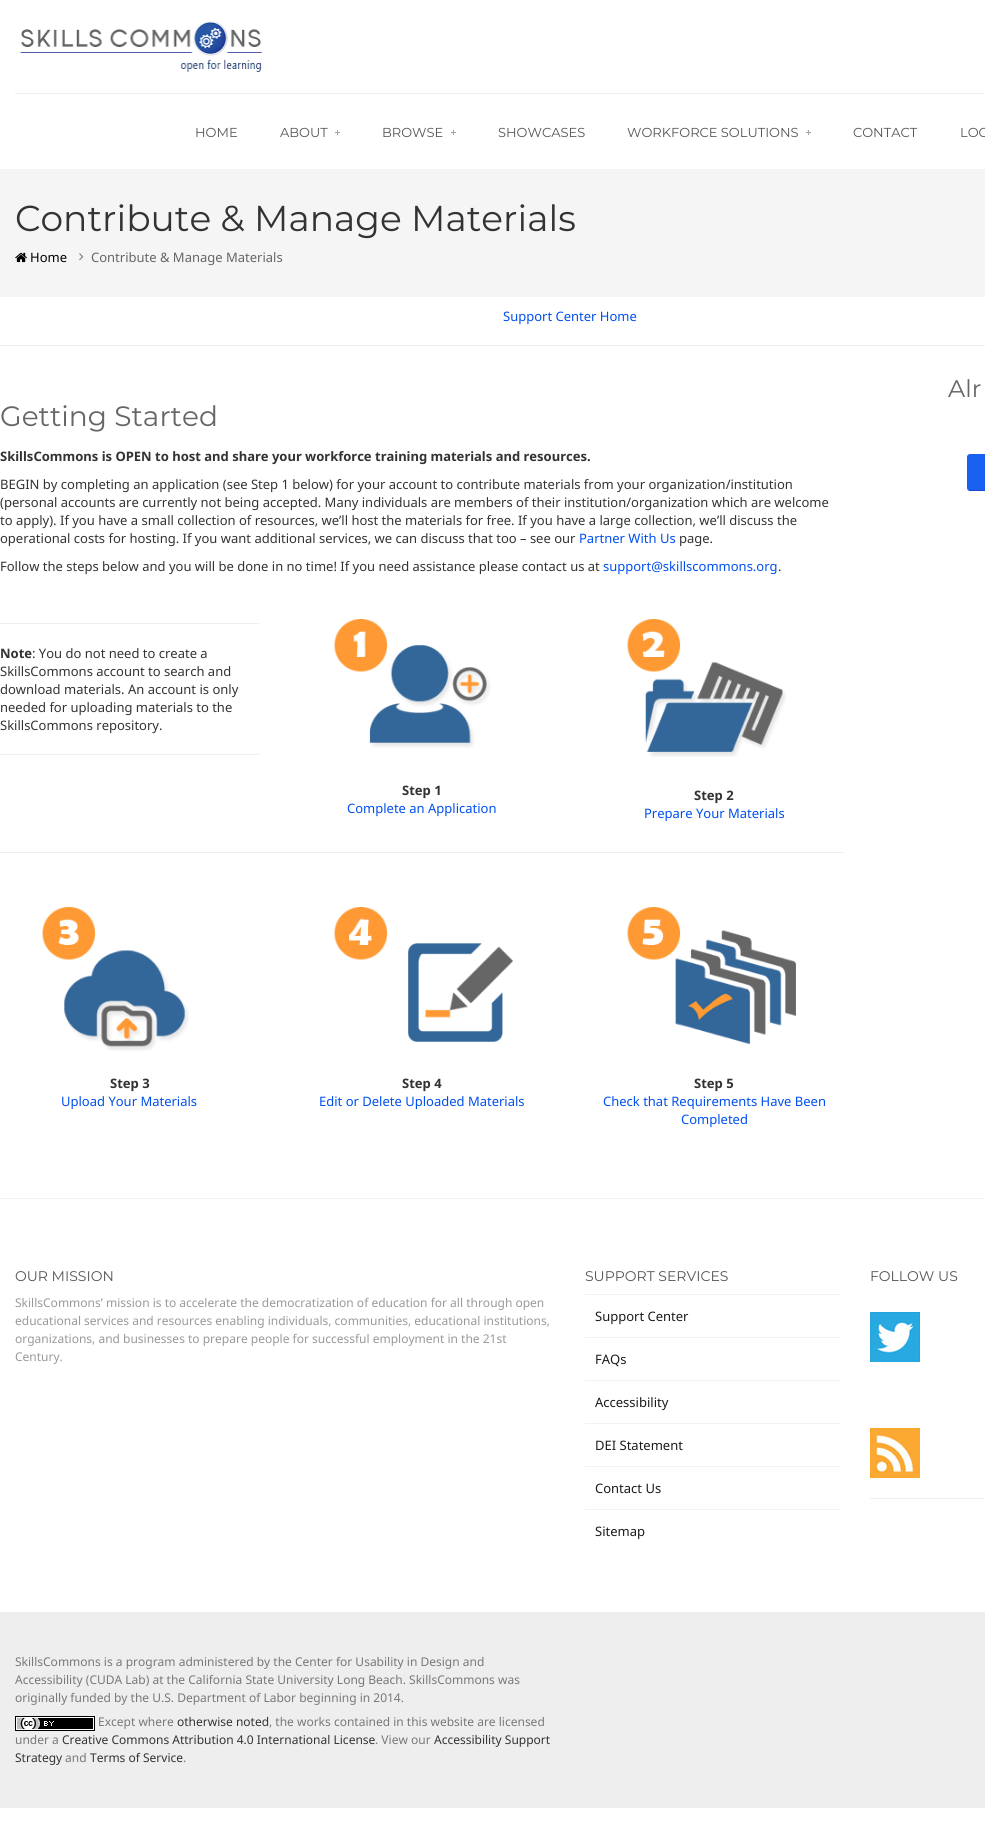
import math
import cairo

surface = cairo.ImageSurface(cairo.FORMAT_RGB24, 985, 1839)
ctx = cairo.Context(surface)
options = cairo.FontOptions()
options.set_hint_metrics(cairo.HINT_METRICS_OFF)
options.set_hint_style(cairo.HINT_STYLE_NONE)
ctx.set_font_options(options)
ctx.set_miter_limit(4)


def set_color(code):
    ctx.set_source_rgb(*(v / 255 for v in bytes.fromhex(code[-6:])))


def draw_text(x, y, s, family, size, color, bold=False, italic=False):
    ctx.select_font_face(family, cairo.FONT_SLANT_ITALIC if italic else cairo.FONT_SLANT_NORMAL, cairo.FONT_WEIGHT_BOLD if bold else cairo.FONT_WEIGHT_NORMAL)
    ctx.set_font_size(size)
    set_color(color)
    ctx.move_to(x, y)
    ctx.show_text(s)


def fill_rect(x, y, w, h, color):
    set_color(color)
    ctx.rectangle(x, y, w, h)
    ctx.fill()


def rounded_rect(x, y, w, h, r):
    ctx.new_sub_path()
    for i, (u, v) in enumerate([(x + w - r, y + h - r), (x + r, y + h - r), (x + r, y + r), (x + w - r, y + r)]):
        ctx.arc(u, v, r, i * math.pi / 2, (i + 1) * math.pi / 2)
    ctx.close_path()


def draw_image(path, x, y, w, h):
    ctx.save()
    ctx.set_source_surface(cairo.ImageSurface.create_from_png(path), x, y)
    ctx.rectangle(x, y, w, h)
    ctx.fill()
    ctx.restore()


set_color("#ffffff")
ctx.paint()
fill_rect(15, 93, 970, 1, "#eeeeee")
draw_image("assets/img1.png", 20, 21, 243, 51)
draw_text(195, 137, "HOME", "Montserrat", 13, "#555555")
draw_text(280, 137, "ABOUT", "Montserrat", 13, "#555555")
draw_image("assets/img2.png", 335, 130, 5, 5)
draw_text(382, 137, "BROWSE", "Montserrat", 13, "#555555")
draw_image("assets/img2.png", 451, 130, 5, 5)
draw_text(498, 137, "SHOWCASES", "Montserrat", 13, "#555555")
draw_text(627, 137, "WORKFORCE SOLUTIONS", "Montserrat", 13, "#555555")
draw_image("assets/img2.png", 806, 130, 5, 5)
draw_text(853, 137, "CONTACT", "Montserrat", 13, "#555555")
draw_text(960, 137, "LOG", "Montserrat", 13, "#555555")
fill_rect(0, 169, 985, 128, "#f5f5f5")
draw_text(15, 231, "Contribute & Manage Materials", "Montserrat", 36, "#333333")
draw_image("assets/img3.png", 15, 252, 12, 11)
draw_text(30, 262, "Home", "Noto Sans", 13, "#000000")
draw_image("assets/img4.png", 79, 253, 5, 8)
draw_text(91, 262, "Contribute & Manage Materials", "Noto Sans", 13, "#666666")
draw_text(503, 321, "Support Center Home", "Noto Sans", 13, "#004fef")
fill_rect(0, 345, 985, 1, "#eeeeee")
draw_text(948, 397, "Alr", "Montserrat", 24, "#666666")
set_color("#1a61f1")
rounded_rect(967, 454, 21, 37, 3)
ctx.fill()
fill_rect(969, 490, 16, 1, "#1a46d6")
draw_text(0, 426, "Getting Started", "Montserrat", 28, "#666666")
draw_text(0, 461, "SkillsCommons is OPEN to host and share your workforce training materials and resources.", "Noto Sans", 13, "#333333", bold=True)
draw_text(0, 489, "BEGIN by completing an application (see Step 1 below) for your account to contribute materials from your organization/institution", "Noto Sans", 13, "#333333")
draw_text(0, 507, "(personal accounts are currently not being accepted. Many individuals are members of their institution/organization which are welcome", "Noto Sans", 13, "#333333")
draw_text(0, 525, "to apply). If you have a small collection of resources, we’ll host the materials for free. If you have a large collection, we’ll discuss the", "Noto Sans", 13, "#333333")
draw_text(0, 543, "operational costs for hosting. If you want additional services, we can discuss that too – see our", "Noto Sans", 13, "#333333")
draw_text(579, 543, "Partner With Us", "Noto Sans", 13, "#004fef")
draw_text(679, 543, "page.", "Noto Sans", 13, "#333333")
draw_text(0, 571, "Follow the steps below and you will be done in no time! If you need assistance please contact us at", "Noto Sans", 13, "#333333")
draw_text(603, 571, "support@skillscommons.org", "Noto Sans", 13, "#004fef")
draw_text(778, 571, ".", "Noto Sans", 13, "#333333")
fill_rect(0, 623, 259, 1, "#eeeeee")
draw_text(0, 658, "Note", "Noto Sans", 13, "#333333", bold=True)
draw_text(32, 658, ": You do not need to create a", "Noto Sans", 13, "#333333")
draw_text(0, 676, "SkillsCommons account to search and", "Noto Sans", 13, "#333333")
draw_text(0, 694, "download materials. An account is only", "Noto Sans", 13, "#333333")
draw_text(0, 712, "needed for uploading materials to the", "Noto Sans", 13, "#333333")
draw_text(0, 730, "SkillsCommons repository.", "Noto Sans", 13, "#333333")
fill_rect(0, 754, 259, 1, "#eeeeee")
draw_image("assets/img5.png", 334, 619, 157, 129)
draw_text(402, 795, "Step 1", "Noto Sans", 13, "#333333", bold=True)
draw_text(347, 813, "Complete an Application", "Noto Sans", 13, "#004fef")
draw_image("assets/img6.png", 627, 619, 159, 138)
draw_text(694, 800, "Step 2", "Noto Sans", 13, "#333333", bold=True)
draw_text(644, 818, "Prepare Your Materials", "Noto Sans", 13, "#004fef")
fill_rect(0, 852, 844, 1, "#eeeeee")
draw_image("assets/img7.png", 42, 907, 147, 144)
draw_text(110, 1088, "Step 3", "Noto Sans", 13, "#333333", bold=True)
draw_text(61, 1106, "Upload Your Materials", "Noto Sans", 13, "#004fef")
draw_image("assets/img8.png", 334, 907, 179, 135)
draw_text(402, 1088, "Step 4", "Noto Sans", 13, "#333333", bold=True)
draw_text(319, 1106, "Edit or Delete Uploaded Materials", "Noto Sans", 13, "#004fef")
draw_image("assets/img9.png", 627, 907, 169, 137)
draw_text(694, 1088, "Step 5", "Noto Sans", 13, "#333333", bold=True)
draw_text(603, 1106, "Check that Requirements Have Been", "Noto Sans", 13, "#004fef")
draw_text(681, 1124, "Completed", "Noto Sans", 13, "#004fef")
fill_rect(0, 1198, 985, 1, "#f2f2f2")
draw_text(15, 1281, "OUR MISSION", "Montserrat", 14, "#555555")
draw_text(15, 1307, "SkillsCommons’ mission is to accelerate the democratization of education for all through open", "Noto Sans", 12, "#999999")
draw_text(15, 1325, "educational services and resources enabling individuals, communities, educational institutions,", "Noto Sans", 12, "#999999")
draw_text(15, 1343, "organizations, and businesses to prepare people for successful employment in the 21st", "Noto Sans", 12, "#999999")
draw_text(15, 1361, "Century.", "Noto Sans", 12, "#999999")
draw_text(585, 1281, "SUPPORT SERVICES", "Montserrat", 14, "#555555")
fill_rect(585, 1294, 255, 1, "#f2f2f2")
draw_text(595, 1321, "Support Center", "Noto Sans", 13, "#1b1b1b")
fill_rect(585, 1337, 255, 1, "#f2f2f2")
draw_text(595, 1364, "FAQs", "Noto Sans", 13, "#1b1b1b")
fill_rect(585, 1380, 255, 1, "#f2f2f2")
draw_text(595, 1407, "Accessibility", "Noto Sans", 13, "#1b1b1b")
fill_rect(585, 1423, 255, 1, "#f2f2f2")
draw_text(595, 1450, "DEI Statement", "Noto Sans", 13, "#1b1b1b")
fill_rect(585, 1466, 255, 1, "#f2f2f2")
draw_text(595, 1493, "Contact Us", "Noto Sans", 13, "#1b1b1b")
fill_rect(585, 1509, 255, 1, "#f2f2f2")
draw_text(595, 1536, "Sitemap", "Noto Sans", 13, "#1b1b1b")
draw_text(870, 1281, "FOLLOW US", "Montserrat", 14, "#555555")
draw_image("assets/img10.png", 870, 1312, 50, 50)
draw_image("assets/img11.png", 870, 1428, 50, 50)
fill_rect(870, 1498, 115, 1, "#eeeeee")
fill_rect(0, 1612, 985, 196, "#eeeeee")
draw_text(15, 1666, "SkillsCommons is a program administered by the Center for Usability in Design and", "Noto Sans", 12, "#787878")
draw_text(15, 1684, "Accessibility (CUDA Lab) at the California State University Long Beach. SkillsCommons was", "Noto Sans", 12, "#787878")
draw_text(15, 1702, "originally funded by the U.S. Department of Labor beginning in 2014.", "Noto Sans", 12, "#787878")
draw_image("assets/img12.png", 15, 1716, 80, 15)
draw_text(98, 1726, "Except where", "Noto Sans", 12, "#787878")
draw_text(177, 1726, "otherwise noted", "Noto Sans", 12, "#333333")
draw_text(269, 1726, ", the works contained in this website are licensed", "Noto Sans", 12, "#787878")
draw_text(15, 1744, "under a", "Noto Sans", 12, "#787878")
draw_text(62, 1744, "Creative Commons Attribution 4.0 International License", "Noto Sans", 12, "#333333")
draw_text(375, 1744, ". View our", "Noto Sans", 12, "#787878")
draw_text(434, 1744, "Accessibility Support", "Noto Sans", 12, "#333333")
draw_text(15, 1762, "Strategy", "Noto Sans", 12, "#333333")
draw_text(65, 1762, "and", "Noto Sans", 12, "#787878")
draw_text(90, 1762, "Terms of Service", "Noto Sans", 12, "#333333")
draw_text(183, 1762, ".", "Noto Sans", 12, "#787878")
surface.write_to_png("output.png")
